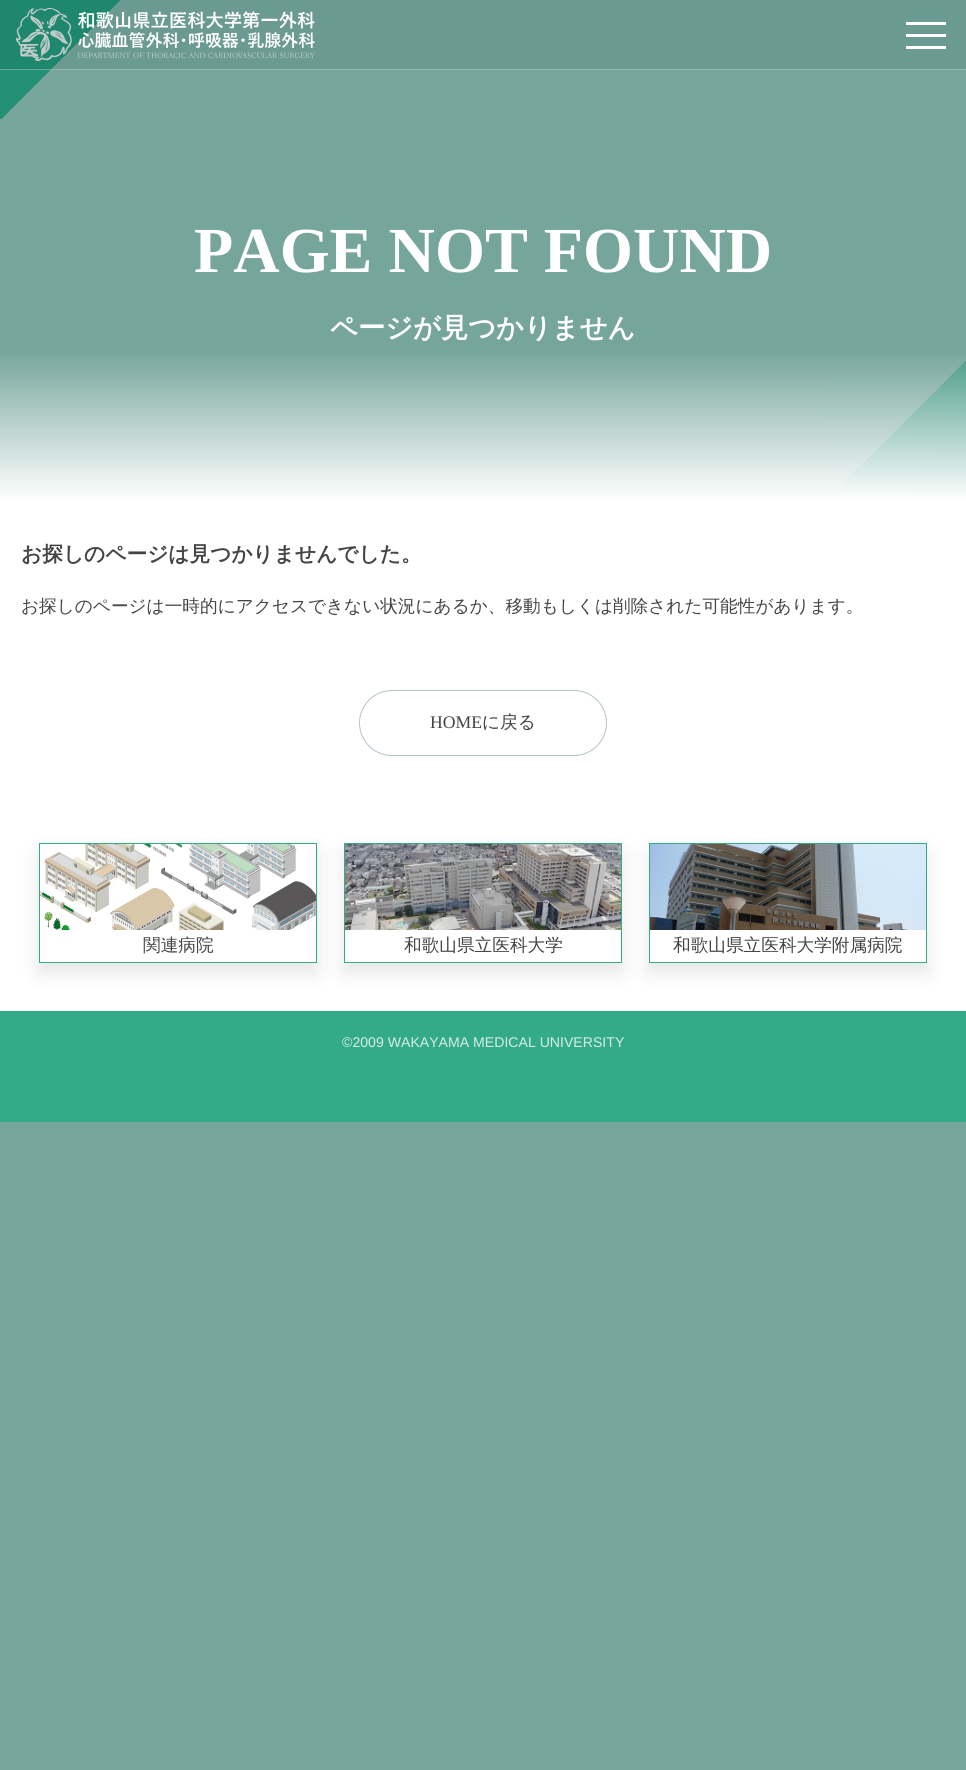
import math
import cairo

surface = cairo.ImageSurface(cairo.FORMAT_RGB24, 966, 1770)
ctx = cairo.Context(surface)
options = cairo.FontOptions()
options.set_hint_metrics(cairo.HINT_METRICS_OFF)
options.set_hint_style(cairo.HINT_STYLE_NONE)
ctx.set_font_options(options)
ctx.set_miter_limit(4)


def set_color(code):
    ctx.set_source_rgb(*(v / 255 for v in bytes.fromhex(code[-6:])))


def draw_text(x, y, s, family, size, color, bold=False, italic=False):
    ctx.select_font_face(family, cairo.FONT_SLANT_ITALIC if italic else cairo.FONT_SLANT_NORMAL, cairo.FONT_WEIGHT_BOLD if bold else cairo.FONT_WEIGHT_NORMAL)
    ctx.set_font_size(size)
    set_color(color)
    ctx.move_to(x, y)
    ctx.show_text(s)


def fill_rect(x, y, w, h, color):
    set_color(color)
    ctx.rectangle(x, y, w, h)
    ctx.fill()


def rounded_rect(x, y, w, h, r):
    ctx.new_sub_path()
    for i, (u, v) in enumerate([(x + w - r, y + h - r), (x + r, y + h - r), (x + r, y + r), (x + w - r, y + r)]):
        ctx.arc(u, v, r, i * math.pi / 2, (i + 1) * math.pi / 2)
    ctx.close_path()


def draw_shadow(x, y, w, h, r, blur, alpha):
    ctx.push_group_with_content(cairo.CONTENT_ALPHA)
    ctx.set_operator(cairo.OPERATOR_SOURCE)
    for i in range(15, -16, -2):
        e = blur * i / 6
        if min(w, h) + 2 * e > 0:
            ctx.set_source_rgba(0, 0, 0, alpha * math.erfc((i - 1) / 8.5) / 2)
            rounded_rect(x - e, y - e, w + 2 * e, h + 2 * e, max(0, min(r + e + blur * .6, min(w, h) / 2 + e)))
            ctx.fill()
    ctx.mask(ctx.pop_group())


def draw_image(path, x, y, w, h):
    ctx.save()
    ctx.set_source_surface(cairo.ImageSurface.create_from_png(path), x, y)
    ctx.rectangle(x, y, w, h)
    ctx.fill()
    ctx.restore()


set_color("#75a59b")
ctx.paint()
gradient = cairo.LinearGradient(783, 903, -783, -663)
gradient.add_color_stop_rgba(0.5, 0, 0.533, 0.4, 0)
gradient.add_color_stop_rgba(0.5, 0, 0.533, 0.4, 0.7)
ctx.set_source(gradient)
ctx.rectangle(0, 0, 120, 119)
ctx.fill()
ctx.set_source_rgba(0, 0.196, 0.196, 0.1)
ctx.rectangle(0, 0, 966, 70)
ctx.fill()
ctx.set_source_rgba(1, 1, 1, 0.3)
ctx.rectangle(0, 69, 966, 1)
ctx.fill()
draw_image("assets/img1.png", 16, 8, 299, 53)
fill_rect(906, 34, 40, 3, "#ffffff")
fill_rect(906, 22, 40, 3, "#ffffff")
fill_rect(906, 46, 40, 3, "#ffffff")
gradient = cairo.LinearGradient(183, -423, 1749, 1143)
gradient.add_color_stop_rgba(0.5, 0.455, 0.647, 0.608, 1)
gradient.add_color_stop_rgba(0.5, 0.275, 0.6, 0.525, 1)
gradient.add_color_stop_rgba(1, 0, 0.533, 0.4, 1)
ctx.set_source(gradient)
ctx.rectangle(827, 361, 139, 139)
ctx.fill()
draw_text(194, 272, "PAGE NOT FOUND", "Liberation Serif", 64.25, "#ffffff", bold=True)
draw_text(330, 337, "ページが見つかりません", "WenQuanYi Zen Hei", 27.25, "#ffffff", bold=True)
gradient = cairo.LinearGradient(483, 350, 483, 794)
gradient.add_color_stop_rgba(0, 1, 1, 1, 0)
gradient.add_color_stop_rgba(0.34, 1, 1, 1, 1)
gradient.add_color_stop_rgba(1, 1, 1, 1, 1)
ctx.set_source(gradient)
ctx.rectangle(0, 353, 966, 441)
ctx.fill()
draw_text(21, 561, "お探しのページは見つかりませんでした。", "WenQuanYi Zen Hei", 20.7, "#444444", bold=True)
draw_text(21, 612, "お探しのページは一時的にアクセスできない状況にあるか、移動もしくは削除された可能性があります。", "WenQuanYi Zen Hei Medium", 17.65, "#444444")
rounded_rect(359.5, 690.5, 247, 65, 32.5)
set_color("#b3c5c8")
ctx.set_line_width(1)
ctx.stroke()
draw_text(430, 728, "HOME", "Liberation Serif", 17.65, "#444444")
draw_text(482, 728, "に戻る", "WenQuanYi Zen Hei Medium", 17.65, "#444444")
fill_rect(0, 794, 966, 217, "#ffffff")
ctx.save()
ctx.set_fill_rule(cairo.FILL_RULE_EVEN_ODD)
ctx.new_path()
ctx.move_to(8, 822)
ctx.line_to(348, 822)
ctx.line_to(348, 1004)
ctx.line_to(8, 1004)
ctx.close_path()
ctx.move_to(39, 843)
ctx.line_to(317, 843)
ctx.line_to(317, 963)
ctx.line_to(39, 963)
ctx.close_path()
ctx.clip()
set_color("#000000")
draw_shadow(39, 853, 278, 120, 0, 10, 0.1)
ctx.restore()
draw_image("assets/img2.png", 40, 844, 276, 86)
ctx.rectangle(39.5, 843.5, 277, 119)
set_color("#33aa88")
ctx.stroke()
draw_text(143, 951, "関連病院", "WenQuanYi Zen Hei Medium", 17.65, "#444444")
set_color("#000000")
draw_shadow(344, 853, 278, 120, 0, 10, 0.1)
draw_image("assets/img3.png", 345, 844, 276, 86)
ctx.rectangle(344.5, 843.5, 277, 119)
set_color("#33aa88")
ctx.stroke()
fill_rect(345, 930, 276, 32, "#ffffff")
draw_text(404, 951, "和歌山県立医科大学", "WenQuanYi Zen Hei Medium", 17.65, "#444444")
set_color("#000000")
draw_shadow(649, 853, 278, 120, 0, 10, 0.1)
draw_image("assets/img4.png", 650, 844, 276, 86)
ctx.rectangle(649.5, 843.5, 277, 119)
set_color("#33aa88")
ctx.stroke()
fill_rect(650, 930, 276, 32, "#ffffff")
draw_text(673, 951, "和歌山県立医科大学附属病院", "WenQuanYi Zen Hei Medium", 17.65, "#444444")
fill_rect(0, 1011, 966, 111, "#33aa88")
draw_text(342, 1047, "©2009 WAKAYAMA MEDICAL UNIVERSITY", "Liberation Sans", 14.1, "#d6eee7")
surface.write_to_png("output.png")
